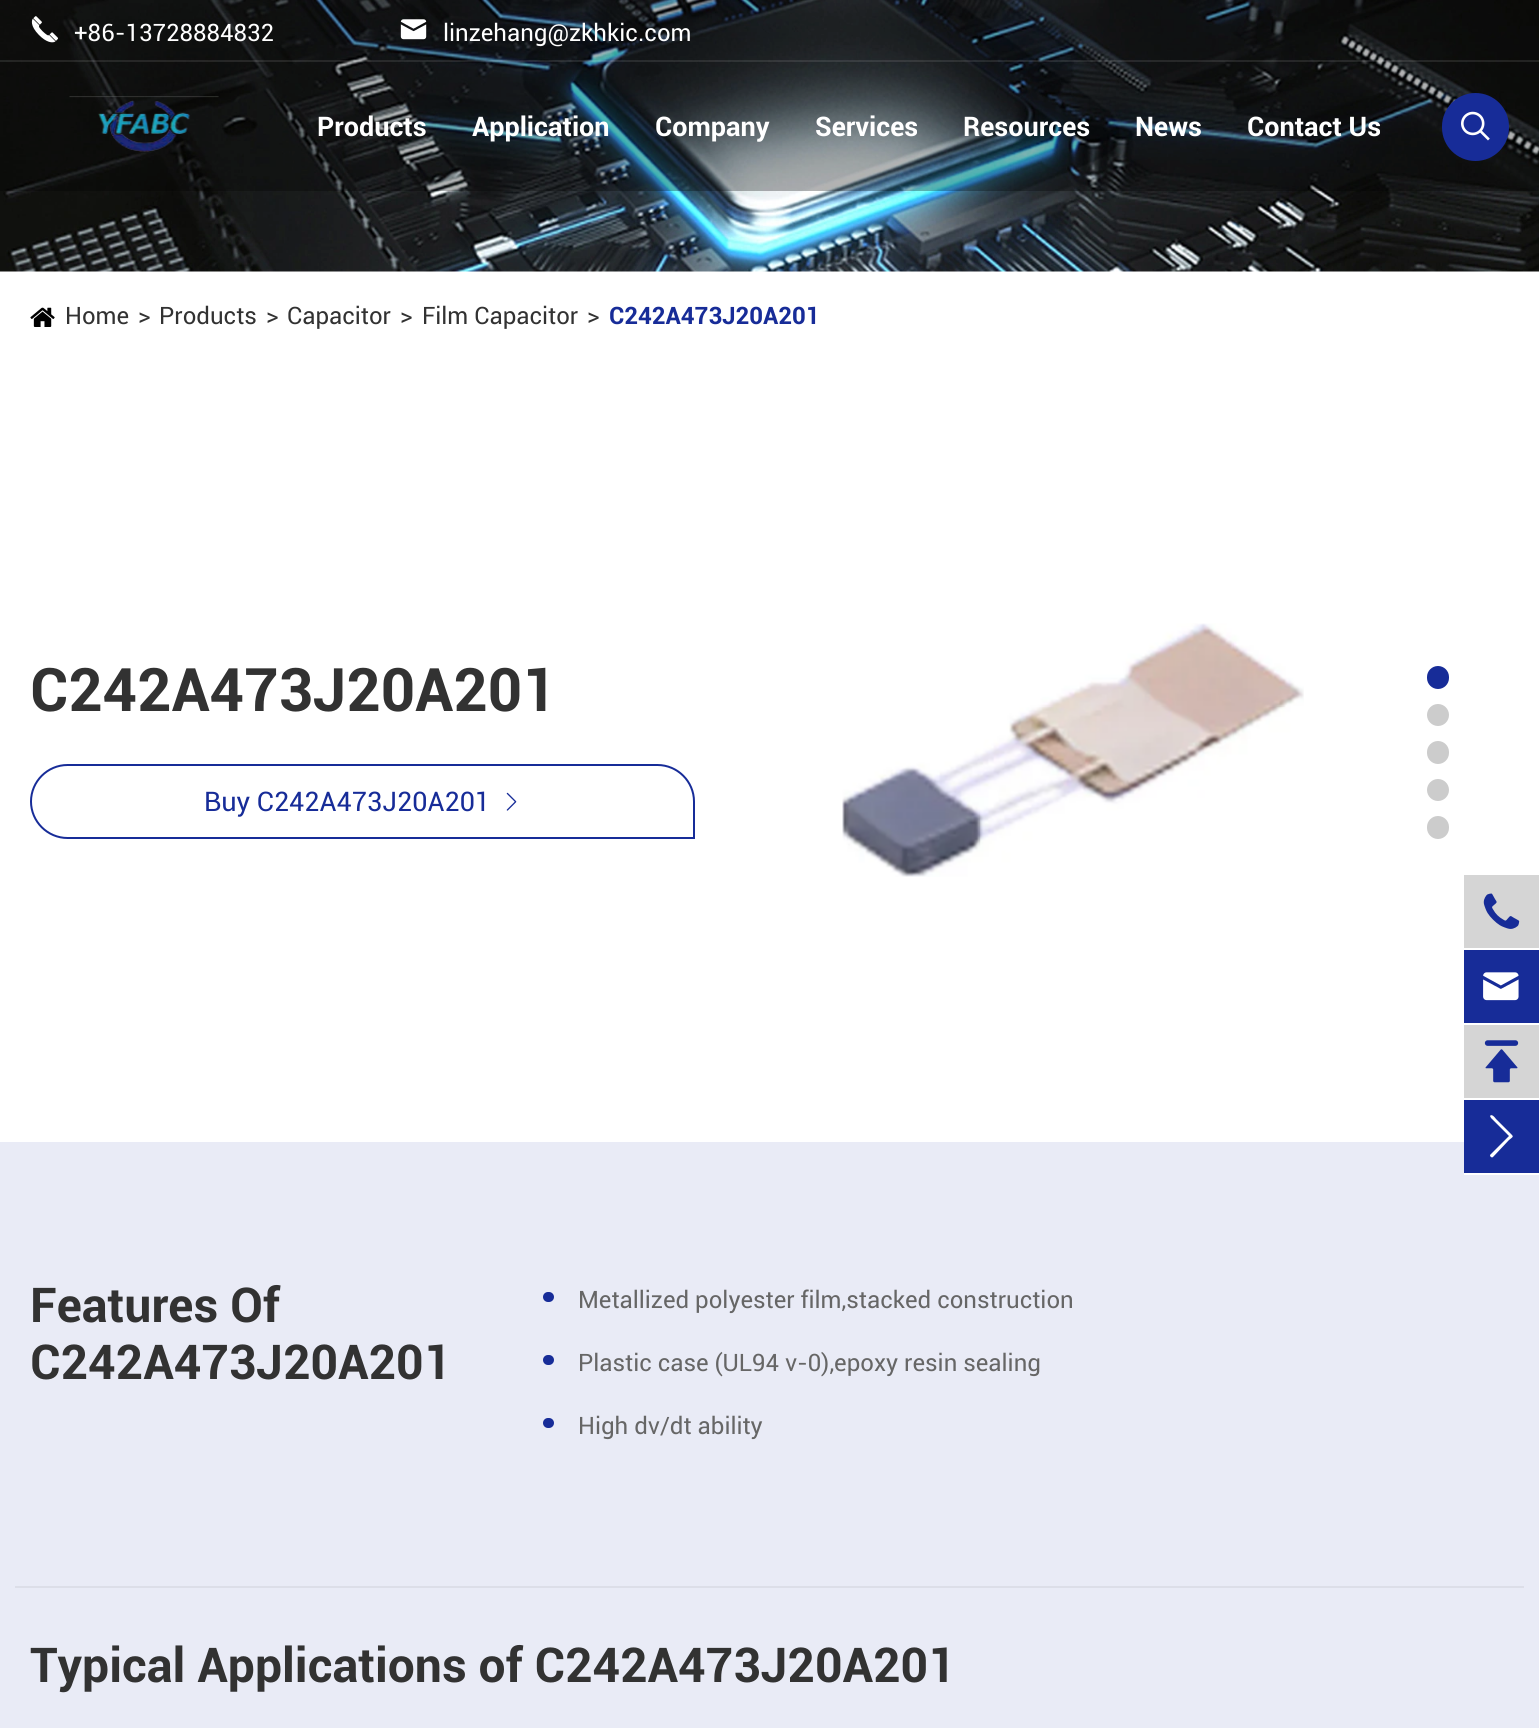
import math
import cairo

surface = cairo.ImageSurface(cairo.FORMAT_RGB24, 1539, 1728)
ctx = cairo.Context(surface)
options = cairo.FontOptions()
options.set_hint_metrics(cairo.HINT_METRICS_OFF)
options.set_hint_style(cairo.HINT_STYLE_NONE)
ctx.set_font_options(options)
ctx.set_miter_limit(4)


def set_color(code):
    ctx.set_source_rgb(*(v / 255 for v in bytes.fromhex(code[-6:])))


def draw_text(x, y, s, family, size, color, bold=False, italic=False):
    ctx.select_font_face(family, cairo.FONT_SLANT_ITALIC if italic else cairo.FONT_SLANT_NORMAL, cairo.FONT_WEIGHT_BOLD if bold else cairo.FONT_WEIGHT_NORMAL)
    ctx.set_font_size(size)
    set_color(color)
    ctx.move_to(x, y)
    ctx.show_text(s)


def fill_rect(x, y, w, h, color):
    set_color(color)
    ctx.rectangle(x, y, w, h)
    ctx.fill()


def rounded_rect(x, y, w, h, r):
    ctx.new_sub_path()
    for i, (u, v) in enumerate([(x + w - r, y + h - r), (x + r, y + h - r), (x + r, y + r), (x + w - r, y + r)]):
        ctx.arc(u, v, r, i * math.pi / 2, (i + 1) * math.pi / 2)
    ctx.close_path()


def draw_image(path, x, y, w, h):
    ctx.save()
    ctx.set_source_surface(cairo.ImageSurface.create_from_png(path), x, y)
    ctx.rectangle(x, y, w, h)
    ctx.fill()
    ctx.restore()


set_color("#ffffff")
ctx.paint()
draw_image("assets/img1.png", 0, 0, 1539, 272)
ctx.set_source_rgba(0, 0, 0, 0.3)
ctx.rectangle(0, 0, 1539, 191)
ctx.fill()
ctx.set_source_rgba(1, 1, 1, 0.1)
ctx.rectangle(0, 60, 1539, 2)
ctx.fill()
draw_image("assets/img2.png", 31, 16, 27, 27)
draw_text(74, 41, "+86-13728884832", "Roboto", 24, "#ffffff")
draw_image("assets/img3.png", 400, 19, 27, 21)
draw_text(443, 41, "linzehang@zkhkic.com", "Roboto", 24, "#ffffff")
draw_image("assets/img4.png", 69, 96, 150, 56)
draw_text(317, 136, "Products", "Roboto", 27, "#ffffff", bold=True)
draw_text(472, 136, "Application", "Roboto", 27, "#ffffff", bold=True)
draw_text(655, 136, "Company", "Roboto", 27, "#ffffff", bold=True)
draw_text(815, 136, "Services", "Roboto", 27, "#ffffff", bold=True)
draw_text(963, 136, "Resources", "Roboto", 27, "#ffffff", bold=True)
draw_text(1135, 136, "News", "Roboto", 27, "#ffffff", bold=True)
draw_text(1247, 136, "Contact Us", "Roboto", 27, "#ffffff", bold=True)
set_color("#172c98")
rounded_rect(1442, 93, 67, 68, 33.5)
ctx.fill()
draw_image("assets/img5.png", 1461, 111, 29, 30)
draw_image("assets/img6.png", 30, 307, 25, 20)
draw_text(65, 324, "Home", "Roboto", 24, "#323232")
draw_text(138, 324, ">", "Roboto", 24, "#323232")
draw_text(159, 324, "Products", "Roboto", 24, "#323232")
draw_text(266, 324, ">", "Roboto", 24, "#323232")
draw_text(287, 324, "Capacitor", "Roboto", 24, "#323232")
draw_text(400, 324, ">", "Roboto", 24, "#323232")
draw_text(422, 324, "Film Capacitor", "Roboto", 24, "#323232")
draw_text(587, 324, ">", "Roboto", 24, "#323232")
draw_text(609, 324, "C242A473J20A201", "Roboto", 24, "#172c98", bold=True)
draw_text(30, 711, "C242A473J20A201", "Roboto", 60, "#323232", bold=True)
ctx.new_path()
ctx.move_to(67.5, 765)
ctx.line_to(657.5, 765)
ctx.curve_to(677.5, 765, 694, 781.5, 694, 801.5)
ctx.line_to(694, 838)
ctx.line_to(67.5, 838)
ctx.curve_to(47.5, 838, 31, 821.5, 31, 801.5)
ctx.curve_to(31, 781.5, 47.5, 765, 67.5, 765)
ctx.close_path()
set_color("#172c98")
ctx.stroke()
draw_text(204, 811, "Buy C242A473J20A201", "Roboto", 27, "#172c98")
draw_image("assets/img7.png", 506, 792, 11, 19)
draw_image("assets/img8.png", 842, 623, 462, 254)
rounded_rect(1427, 666, 22, 23, 11)
ctx.fill()
set_color("#cccccc")
ctx.arc(1438, 715, 11, 0, 2 * math.pi)
ctx.fill()
rounded_rect(1427, 741, 22, 23, 11)
ctx.fill()
ctx.arc(1438, 790, 11, 0, 2 * math.pi)
ctx.fill()
rounded_rect(1427, 816, 22, 23, 11)
ctx.fill()
fill_rect(0, 1142, 1539, 586, "#e9ebf6")
fill_rect(15, 1586, 1509, 2, "#dcdee8")
draw_text(30, 1322, "Features Of", "Roboto", 48, "#323232", bold=True)
draw_text(30, 1379, "C242A473J20A201", "Roboto", 48, "#323232", bold=True)
set_color("#172c98")
rounded_rect(543, 1292, 11, 10, 5)
ctx.fill()
draw_text(578, 1308, "Metallized polyester film,stacked construction", "Roboto", 24, "#666666")
set_color("#172c98")
rounded_rect(543, 1355, 11, 10, 5)
ctx.fill()
draw_text(578, 1371, "Plastic case (UL94 v-0),epoxy resin sealing", "Roboto", 24, "#666666")
set_color("#172c98")
rounded_rect(543, 1418, 11, 10, 5)
ctx.fill()
draw_text(578, 1434, "High dv/dt ability", "Roboto", 24, "#666666")
draw_text(30, 1682, "Typical Applications of C242A473J20A201", "Roboto", 48, "#323232", bold=True)
fill_rect(1464, 875, 75, 73, "#d5d5d5")
draw_image("assets/img9.png", 1483, 893, 37, 36)
fill_rect(1464, 950, 75, 73, "#172c98")
draw_image("assets/img10.png", 1483, 972, 36, 29)
fill_rect(1464, 1025, 75, 73, "#d5d5d5")
draw_image("assets/img11.png", 1484, 1040, 35, 43)
fill_rect(1464, 1100, 75, 73, "#172c98")
fill_rect(1464, 1173, 75, 2, "#ffffff")
ctx.new_path()
ctx.move_to(1493, 1157)
ctx.line_to(1509, 1140)
ctx.curve_to(1514, 1136, 1514, 1137, 1509, 1132)
ctx.line_to(1496, 1119)
ctx.curve_to(1496, 1119, 1492, 1113, 1490, 1116)
ctx.line_to(1491, 1118)
ctx.line_to(1509, 1136)
ctx.line_to(1490, 1155)
ctx.curve_to(1490, 1157, 1492, 1158, 1493, 1157)
ctx.close_path()
ctx.fill()
surface.write_to_png("output.png")
